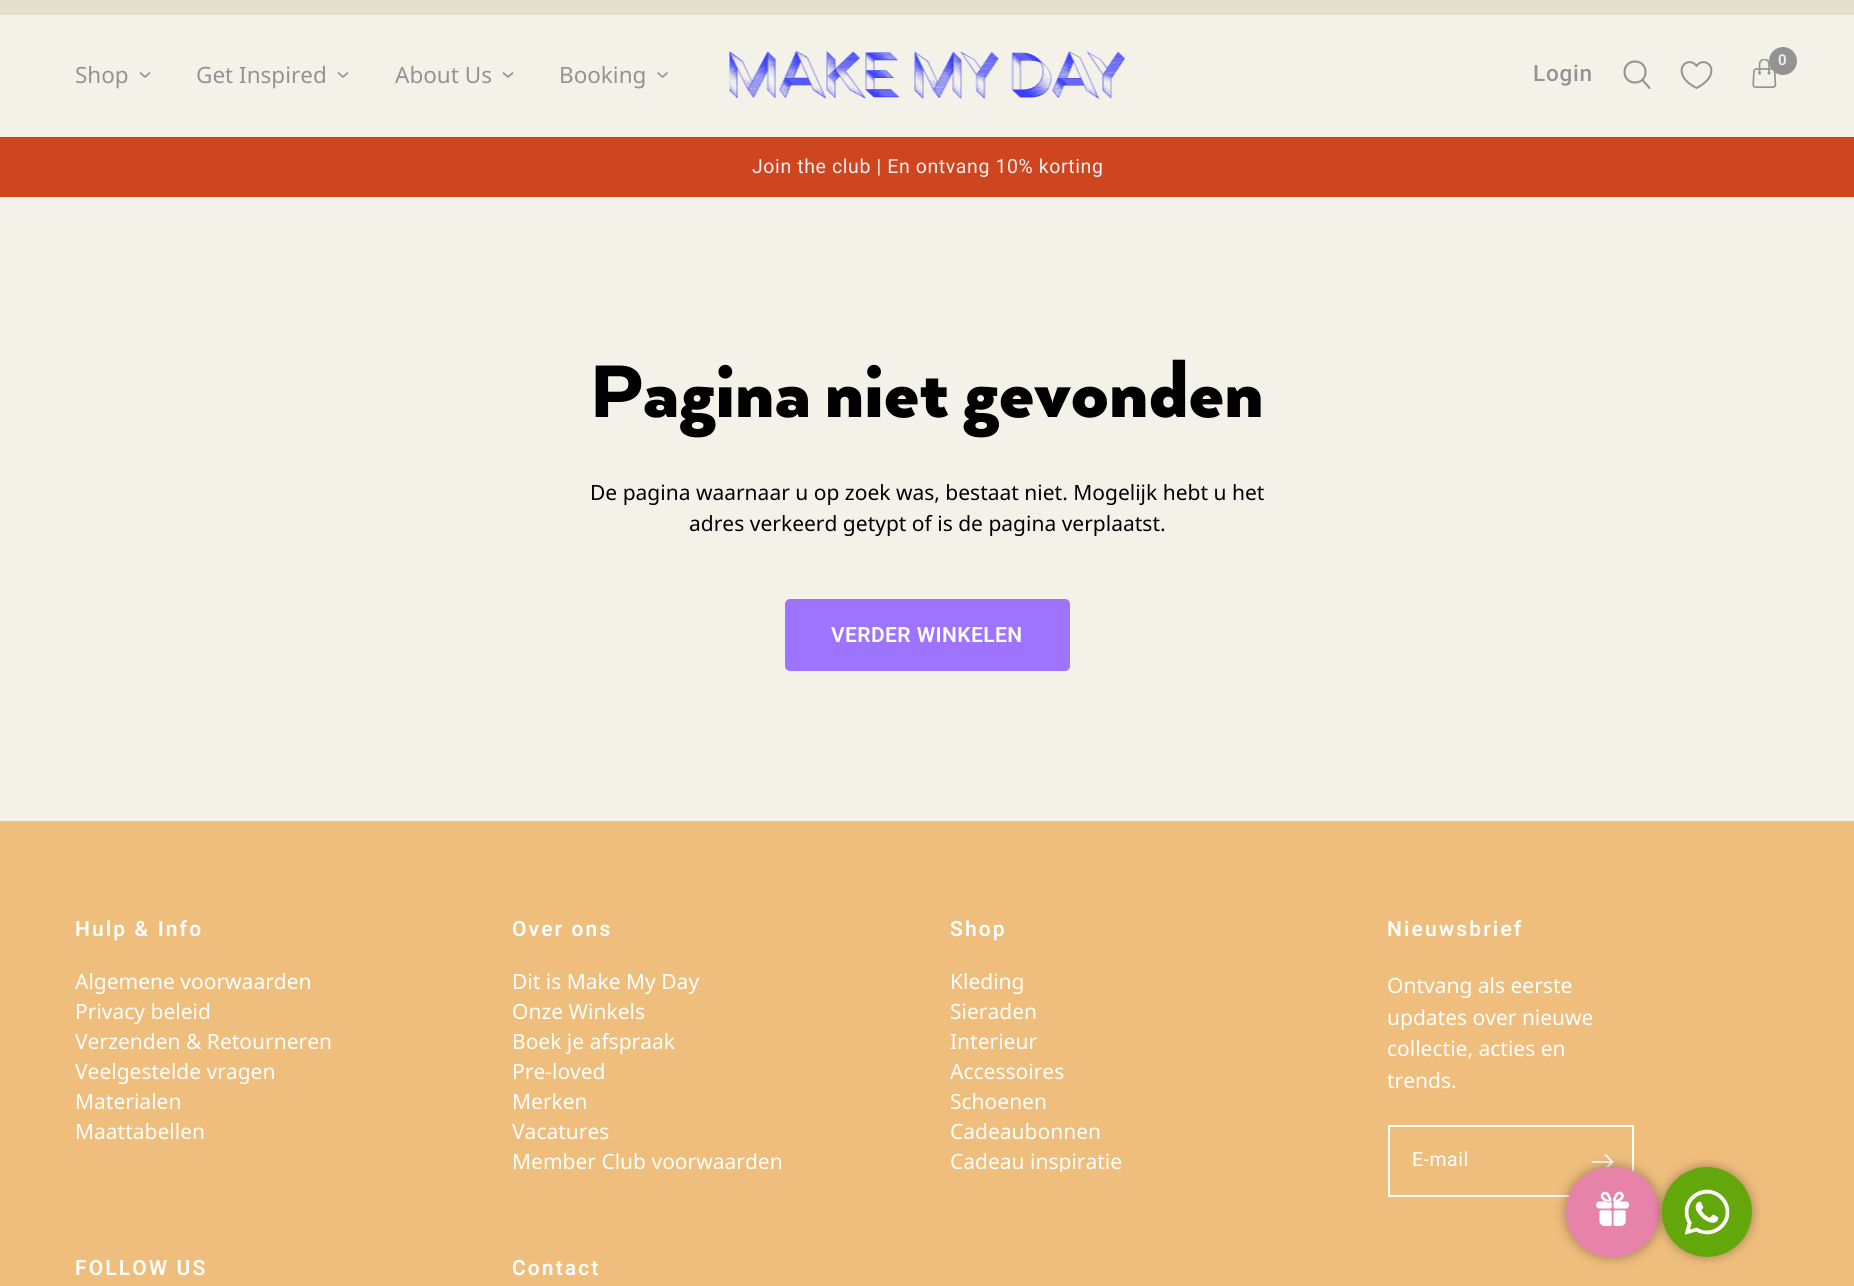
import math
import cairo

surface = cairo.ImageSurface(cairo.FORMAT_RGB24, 1854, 1286)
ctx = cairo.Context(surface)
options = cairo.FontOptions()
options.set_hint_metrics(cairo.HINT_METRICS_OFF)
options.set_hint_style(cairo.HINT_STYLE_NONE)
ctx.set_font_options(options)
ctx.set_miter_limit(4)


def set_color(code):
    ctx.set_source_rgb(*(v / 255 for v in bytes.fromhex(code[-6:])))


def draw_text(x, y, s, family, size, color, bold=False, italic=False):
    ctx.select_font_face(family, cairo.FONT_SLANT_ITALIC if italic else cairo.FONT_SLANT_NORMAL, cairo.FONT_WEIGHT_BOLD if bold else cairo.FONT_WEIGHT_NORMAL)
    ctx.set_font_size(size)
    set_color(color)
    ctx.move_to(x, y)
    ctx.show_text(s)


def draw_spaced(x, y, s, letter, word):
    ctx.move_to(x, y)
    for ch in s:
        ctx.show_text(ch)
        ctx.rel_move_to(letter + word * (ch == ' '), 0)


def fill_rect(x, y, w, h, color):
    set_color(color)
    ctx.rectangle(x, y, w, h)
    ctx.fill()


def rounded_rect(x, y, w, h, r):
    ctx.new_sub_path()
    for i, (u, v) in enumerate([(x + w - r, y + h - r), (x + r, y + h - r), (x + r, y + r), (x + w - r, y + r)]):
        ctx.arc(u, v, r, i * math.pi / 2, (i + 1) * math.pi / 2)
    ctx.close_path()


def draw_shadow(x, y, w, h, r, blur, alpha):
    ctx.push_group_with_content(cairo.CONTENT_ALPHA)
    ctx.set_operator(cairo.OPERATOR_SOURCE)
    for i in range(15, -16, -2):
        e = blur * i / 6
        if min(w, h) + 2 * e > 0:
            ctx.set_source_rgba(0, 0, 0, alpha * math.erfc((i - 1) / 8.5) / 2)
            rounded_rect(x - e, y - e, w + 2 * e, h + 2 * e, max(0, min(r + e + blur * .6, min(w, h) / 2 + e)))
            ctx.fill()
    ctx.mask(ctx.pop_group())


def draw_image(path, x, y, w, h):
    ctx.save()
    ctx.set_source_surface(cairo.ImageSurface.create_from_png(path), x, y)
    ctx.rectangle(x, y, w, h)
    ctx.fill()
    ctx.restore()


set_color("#f4f2e8")
ctx.paint()
fill_rect(0, 0, 1854, 15, "#e3dfcf")
draw_text(75, 83, "Shop", "Noto Sans", 22.5, "#939393")
ctx.new_path()
ctx.move_to(149.5, 73)
ctx.line_to(145, 77)
ctx.line_to(140.5, 73)
ctx.set_line_width(1.7)
ctx.set_line_cap(cairo.LINE_CAP_ROUND)
ctx.set_line_join(cairo.LINE_JOIN_ROUND)
ctx.stroke()
draw_text(196, 83, "Get Inspired", "Noto Sans", 22.5, "#939393")
ctx.new_path()
ctx.move_to(347.5, 73)
ctx.line_to(343, 77)
ctx.line_to(338.5, 73)
ctx.stroke()
draw_text(395, 83, "About Us", "Noto Sans", 22.5, "#939393")
ctx.new_path()
ctx.move_to(512.5, 73)
ctx.line_to(508, 77)
ctx.line_to(503.5, 73)
ctx.stroke()
draw_text(559, 83, "Booking", "Noto Sans", 22.5, "#939393")
ctx.new_path()
ctx.move_to(667, 73)
ctx.line_to(662.5, 77)
ctx.line_to(658, 73)
ctx.stroke()
draw_image("assets/img1.png", 729, 51, 397, 48)
ctx.select_font_face("Roboto Medium")
draw_spaced(1533, 81, "Login", 0.75, 0)
ctx.new_path()
ctx.move_to(1642.5, 80)
ctx.line_to(1649.5, 88)
ctx.move_to(1645.5, 72)
ctx.curve_to(1645.5, 86, 1624.5, 86, 1624.5, 72)
ctx.curve_to(1624.5, 58, 1645.5, 58, 1645.5, 72)
ctx.close_path()
ctx.set_line_width(2.1)
ctx.stroke()
draw_image("assets/img2.png", 1680, 61, 33, 28)
draw_image("assets/img3.png", 1752, 59, 25, 29)
ctx.arc(1783, 61, 14, 0, 2 * math.pi)
ctx.fill()
ctx.select_font_face("Roboto SemiBold")
ctx.set_font_size(15)
set_color("#f4f2e8")
draw_spaced(1778, 65, "0", 0.75, 0)
fill_rect(0, 137, 1854, 60, "#cf4520")
ctx.select_font_face("Roboto")
ctx.set_font_size(19.5)
set_color("#f1f1f1")
draw_spaced(752, 173, "Join the club | En ontvang 10% korting", 0.6, 0)
draw_text(590, 417, "Pagina niet gevonden", "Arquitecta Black", 85.75, "#000000")
draw_text(590, 500, "De pagina waarnaar u op zoek was, bestaat niet. Mogelijk hebt u het", "Noto Sans", 21, "#000000")
draw_text(689, 531, "adres verkeerd getypt of is de pagina verplaatst.", "Noto Sans", 21, "#000000")
set_color("#9e74ff")
rounded_rect(786, 600, 283, 70, 4)
ctx.fill_preserve()
ctx.set_line_width(2)
ctx.set_line_cap(cairo.LINE_CAP_BUTT)
ctx.set_line_join(cairo.LINE_JOIN_MITER)
ctx.stroke()
ctx.select_font_face("Roboto SemiBold")
set_color("#ffffff")
draw_spaced(831, 642, "VERDER WINKELEN", 0.4, 0)
fill_rect(0, 821, 1854, 465, "#efbe7d")
set_color("#ffffff")
draw_spaced(75, 936, "Hulp & Info", 2.1, 0)
draw_text(75, 989, "Algemene voorwaarden", "Noto Sans", 21, "#ffffff")
draw_text(75, 1019, "Privacy beleid", "Noto Sans", 21, "#ffffff")
draw_text(75, 1049, "Verzenden & Retourneren", "Noto Sans", 21, "#ffffff")
draw_text(75, 1079, "Veelgestelde vragen", "Noto Sans", 21, "#ffffff")
draw_text(75, 1109, "Materialen", "Noto Sans", 21, "#ffffff")
draw_text(75, 1139, "Maattabellen", "Noto Sans", 21, "#ffffff")
ctx.select_font_face("Roboto SemiBold")
draw_spaced(512, 936, "Over ons", 2.1, 0)
draw_text(512, 989, "Dit is Make My Day", "Noto Sans", 21, "#ffffff")
draw_text(512, 1019, "Onze Winkels", "Noto Sans", 21, "#ffffff")
draw_text(512, 1049, "Boek je afspraak", "Noto Sans", 21, "#ffffff")
draw_text(512, 1079, "Pre-loved", "Noto Sans", 21, "#ffffff")
draw_text(512, 1109, "Merken", "Noto Sans", 21, "#ffffff")
draw_text(512, 1139, "Vacatures", "Noto Sans", 21, "#ffffff")
draw_text(512, 1169, "Member Club voorwaarden", "Noto Sans", 21, "#ffffff")
ctx.select_font_face("Roboto SemiBold")
draw_spaced(950, 936, "Shop", 2.1, 0)
draw_text(950, 989, "Kleding", "Noto Sans", 21, "#ffffff")
draw_text(950, 1019, "Sieraden", "Noto Sans", 21, "#ffffff")
draw_text(950, 1049, "Interieur", "Noto Sans", 21, "#ffffff")
draw_text(950, 1079, "Accessoires", "Noto Sans", 21, "#ffffff")
draw_text(950, 1109, "Schoenen", "Noto Sans", 21, "#ffffff")
draw_text(950, 1139, "Cadeaubonnen", "Noto Sans", 21, "#ffffff")
ctx.save()
ctx.rectangle(950, 969, 393, 203)
ctx.clip()
draw_text(950, 1169, "Cadeau inspiratie", "Noto Sans", 21, "#ffffff")
ctx.restore()
ctx.select_font_face("Roboto SemiBold")
draw_spaced(1387, 936, "Nieuwsbrief", 2.1, 0)
draw_text(1387, 993, "Ontvang als eerste", "Noto Sans", 21, "#ffffff")
draw_text(1387, 1025, "updates over nieuwe", "Noto Sans", 21, "#ffffff")
draw_text(1387, 1056, "collectie, acties en", "Noto Sans", 21, "#ffffff")
draw_text(1387, 1088, "trends.", "Noto Sans", 21, "#ffffff")
ctx.rectangle(1389, 1126, 244, 70)
ctx.stroke()
ctx.select_font_face("Roboto")
ctx.set_font_size(19.5)
draw_spaced(1412, 1166, "E‑mail", 0.5, 0)
ctx.new_path()
ctx.move_to(1592.5, 1162)
ctx.line_to(1610.5, 1162)
ctx.move_to(1605.5, 1155)
ctx.line_to(1612.5, 1162)
ctx.line_to(1605.5, 1168.5)
ctx.set_line_width(1.8)
ctx.set_line_cap(cairo.LINE_CAP_ROUND)
ctx.set_line_join(cairo.LINE_JOIN_ROUND)
ctx.stroke()
ctx.select_font_face("Roboto SemiBold")
ctx.set_font_size(21)
draw_spaced(75, 1275, "FOLLOW US", 2.1, 0)
draw_spaced(512, 1275, "Contact", 2.1, 0)
set_color("#000000")
draw_shadow(1566, 1167, 93, 90, 45, 6, 0.35)
set_color("#e782a9")
rounded_rect(1566, 1167, 93, 90, 45)
ctx.fill()
draw_image("assets/img4.png", 1596, 1191, 34, 35)
draw_image("assets/img5.png", 1654, 1159, 106, 106)
surface.write_to_png("output.png")
